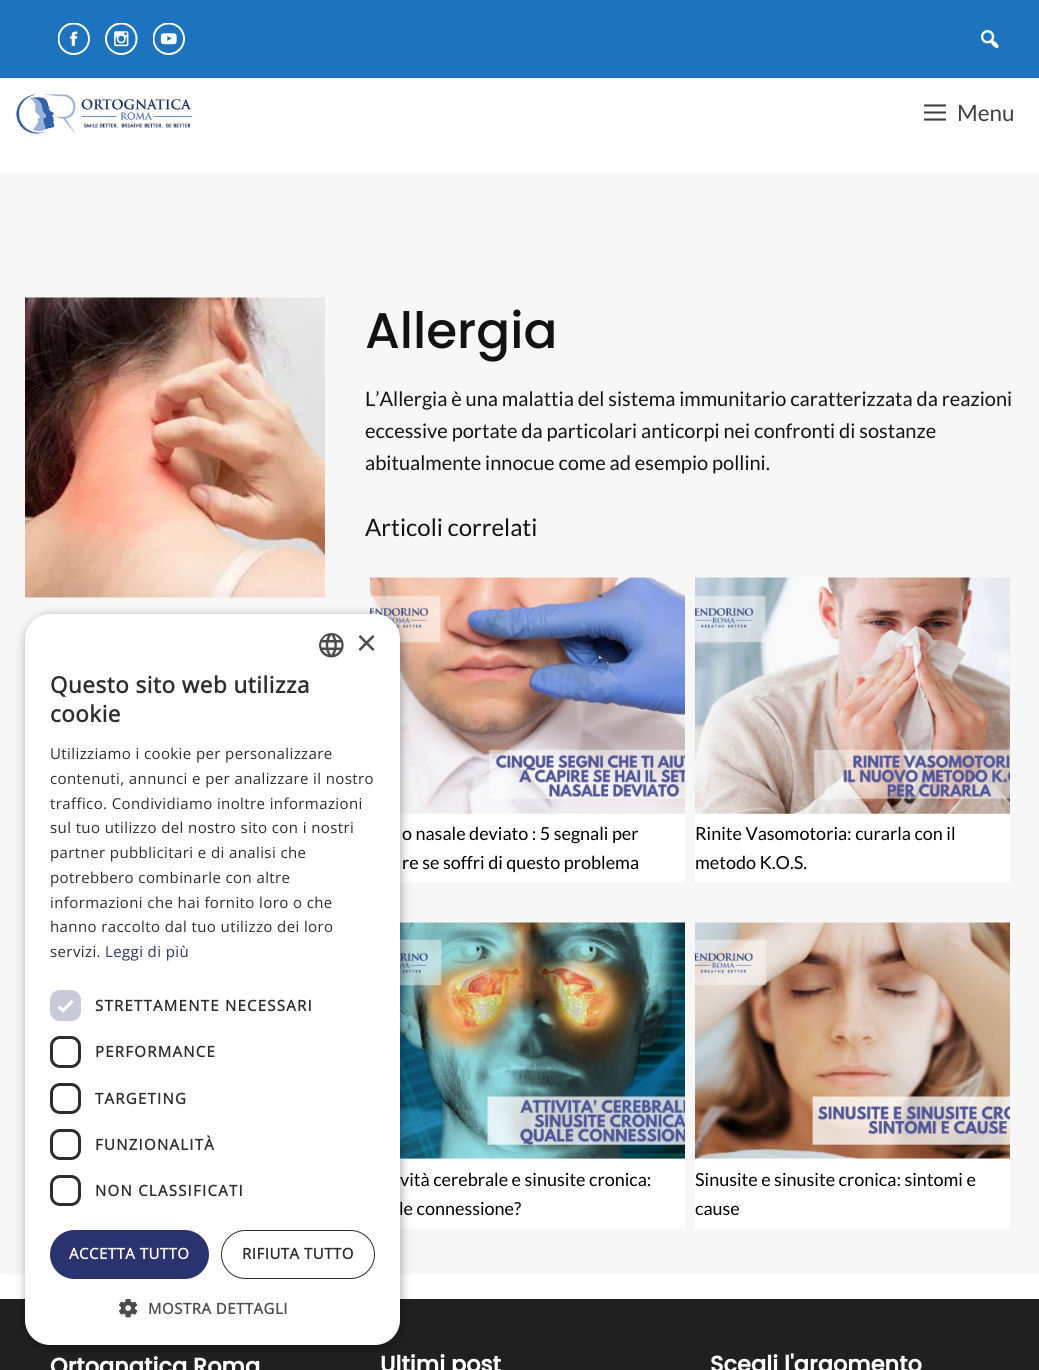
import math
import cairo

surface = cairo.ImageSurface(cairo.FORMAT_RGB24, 1039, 1370)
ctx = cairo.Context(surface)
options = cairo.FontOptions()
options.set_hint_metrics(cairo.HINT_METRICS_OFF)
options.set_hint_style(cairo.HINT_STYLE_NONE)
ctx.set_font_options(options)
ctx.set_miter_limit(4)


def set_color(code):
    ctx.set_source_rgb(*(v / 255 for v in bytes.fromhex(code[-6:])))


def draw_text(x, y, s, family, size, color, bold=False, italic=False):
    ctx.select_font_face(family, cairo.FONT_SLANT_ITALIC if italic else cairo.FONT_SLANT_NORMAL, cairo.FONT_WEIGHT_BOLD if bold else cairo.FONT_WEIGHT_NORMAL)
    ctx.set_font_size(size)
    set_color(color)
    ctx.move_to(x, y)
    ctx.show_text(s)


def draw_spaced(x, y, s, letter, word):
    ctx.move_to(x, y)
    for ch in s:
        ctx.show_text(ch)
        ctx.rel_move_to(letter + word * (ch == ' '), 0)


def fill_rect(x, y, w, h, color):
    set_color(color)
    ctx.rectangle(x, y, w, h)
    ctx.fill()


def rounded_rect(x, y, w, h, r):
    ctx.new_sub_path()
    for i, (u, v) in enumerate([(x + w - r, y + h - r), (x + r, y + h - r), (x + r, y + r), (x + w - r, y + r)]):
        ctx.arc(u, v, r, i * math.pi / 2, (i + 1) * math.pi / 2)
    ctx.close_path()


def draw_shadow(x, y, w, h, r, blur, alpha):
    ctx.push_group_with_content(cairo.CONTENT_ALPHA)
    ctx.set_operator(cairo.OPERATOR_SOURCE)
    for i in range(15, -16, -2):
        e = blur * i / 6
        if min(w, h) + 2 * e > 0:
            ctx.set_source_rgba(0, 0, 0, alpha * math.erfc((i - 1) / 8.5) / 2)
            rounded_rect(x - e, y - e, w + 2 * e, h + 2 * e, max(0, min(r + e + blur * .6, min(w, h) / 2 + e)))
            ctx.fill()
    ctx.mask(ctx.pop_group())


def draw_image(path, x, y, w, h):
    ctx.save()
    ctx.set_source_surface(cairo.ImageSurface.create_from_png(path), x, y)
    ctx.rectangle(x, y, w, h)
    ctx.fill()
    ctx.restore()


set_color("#ffffff")
ctx.paint()
fill_rect(0, 0, 1039, 78, "#1e73be")
draw_image("assets/img1.png", 58, 23, 32, 32)
draw_image("assets/img2.png", 105, 23, 33, 32)
draw_image("assets/img3.png", 153, 23, 32, 32)
draw_image("assets/img4.png", 980, 30, 19, 19)
draw_image("assets/img5.png", 15, 92, 178, 43)
draw_image("assets/img6.png", 924, 104, 22, 17)
draw_text(957, 121, "Menu", "Lato", 22.5, "#3f3f3f")
fill_rect(0, 173, 1039, 1101, "#f7f7f7")
fill_rect(400, 813, 285, 70, "#ffffff")
draw_image("assets/img10.png", 370, 577, 315, 237)
fill_rect(400, 1158, 285, 71, "#ffffff")
draw_image("assets/img12.png", 400, 922, 285, 237)
fill_rect(0, 1299, 1039, 71, "#202020")
set_color("#000000")
draw_shadow(26, 616, 375, 732, 25, 5, 0.35)
set_color("#ffffff")
rounded_rect(25, 614, 375, 731, 25)
ctx.fill()
draw_image("assets/img7.png", 319, 633, 25, 25)
draw_text(356, 655, "×", "Liberation Sans", 36, "#4d4d4d")
ctx.select_font_face("Open Sans", cairo.FONT_SLANT_NORMAL, cairo.FONT_WEIGHT_BOLD)
ctx.set_font_size(22.5)
set_color("#2d2d2d")
draw_spaced(50, 693, "Questo sito web utilizza", 0.5, 0)
draw_spaced(50, 722, "cookie", 0.5, 0)
ctx.select_font_face("Open Sans")
ctx.set_font_size(15)
draw_spaced(50, 759, "Utilizziamo i cookie per personalizzare", 0.4, 0)
draw_spaced(50, 784, "contenuti, annunci e per analizzare il nostro", 0.4, 0)
draw_spaced(50, 809, "traffico. Condividiamo inoltre informazioni", 0.4, 0)
draw_spaced(50, 833, "sul tuo utilizzo del nostro sito con i nostri", 0.4, 0)
draw_spaced(50, 858, "partner pubblicitari e di analisi che", 0.4, 0)
draw_spaced(50, 883, "potrebbero combinarle con altre", 0.4, 0)
draw_spaced(50, 908, "informazioni che hai fornito loro o che", 0.4, 0)
draw_spaced(50, 932, "hanno raccolto dal tuo utilizzo dei loro", 0.4, 0)
draw_spaced(50, 957, "servizi.", 0.4, 0)
set_color("#2b3270")
draw_spaced(105, 957, "Leggi di più", 0.4, 0)
set_color("#c8cada")
rounded_rect(50, 990, 31, 31, 10)
ctx.fill()
ctx.new_path()
ctx.move_to(58.5, 1006.5)
ctx.line_to(63, 1010.5)
ctx.line_to(72.5, 1001)
set_color("#ffffff")
ctx.set_line_width(3.3)
ctx.stroke()
ctx.select_font_face("Open Sans", cairo.FONT_SLANT_NORMAL, cairo.FONT_WEIGHT_BOLD)
set_color("#2d2d2d")
draw_spaced(95, 1011, "STRETTAMENTE NECESSARI", 1.25, 0)
rounded_rect(51.5, 1037.5, 28, 29, 8.5)
ctx.set_line_width(3)
ctx.stroke()
draw_spaced(95, 1057, "PERFORMANCE", 1.25, 0)
rounded_rect(51.5, 1084.5, 28, 28, 8.5)
ctx.stroke()
draw_spaced(95, 1104, "TARGETING", 1.25, 0)
rounded_rect(51.5, 1130.5, 28, 28, 8.5)
ctx.stroke()
draw_spaced(95, 1150, "FUNZIONALITÀ", 1.25, 0)
rounded_rect(51.5, 1176.5, 28, 28, 8.5)
ctx.stroke()
draw_spaced(95, 1196, "NON CLASSIFICATI", 1.25, 0)
set_color("#2b3270")
rounded_rect(50, 1230, 159, 49, 24.5)
ctx.fill()
set_color("#ffffff")
draw_spaced(69, 1259, "ACCETTA TUTTO", 0.5, 0)
rounded_rect(221.5, 1230.5, 153, 48, 24)
set_color("#2d2d2d")
ctx.set_line_width(1)
ctx.stroke()
draw_spaced(242, 1259, "RIFIUTA TUTTO", 0.5, 0)
draw_image("assets/img8.png", 119, 1299, 19, 19)
set_color("#4d4d4d")
draw_spaced(148, 1314, "MOSTRA DETTAGLI", 0.5, 0)
draw_image("assets/img9.png", 25, 297, 300, 301)
draw_text(365, 348, "Allergia", "Poppins Medium", 50, "#121212")
draw_text(365, 406, "L’Allergia è una malattia del sistema immunitario caratterizzata da reazioni", "Lato", 20, "#121212")
draw_text(365, 438, "eccessive portate da particolari anticorpi nei confronti di sostanze", "Lato", 20, "#121212")
draw_text(365, 470, "abitualmente innocue come ad esempio pollini.", "Lato", 20, "#121212")
draw_text(365, 536, "Articoli correlati", "Lato", 24, "#121212")
draw_text(402, 840, "o nasale deviato : 5 segnali per", "Lato", 18, "#000000")
draw_text(402, 869, "re se soffri di questo problema", "Lato", 18, "#000000")
fill_rect(695, 813, 315, 70, "#ffffff")
draw_image("assets/img11.png", 695, 577, 315, 237)
draw_text(695, 840, "Rinite Vasomotoria: curarla con il", "Lato", 18, "#000000")
draw_text(695, 869, "metodo K.O.S.", "Lato", 18, "#000000")
draw_text(400, 1186, "vità cerebrale e sinusite cronica:", "Lato", 18, "#000000")
draw_text(399, 1215, "le connessione?", "Lato", 18, "#000000")
fill_rect(695, 1158, 315, 71, "#ffffff")
draw_image("assets/img13.png", 695, 922, 315, 237)
draw_text(695, 1186, "Sinusite e sinusite cronica: sintomi e", "Lato", 18, "#000000")
draw_text(695, 1215, "cause", "Lato", 18, "#000000")
draw_text(50, 1374, "Ortognatica Roma", "Poppins", 22.5, "#ffffff", bold=True)
draw_text(380, 1372, "Ultimi post", "Poppins", 22.5, "#ffffff", bold=True)
draw_text(710, 1372, "Scegli l'argomento", "Poppins", 22.5, "#ffffff", bold=True)
surface.write_to_png("output.png")
